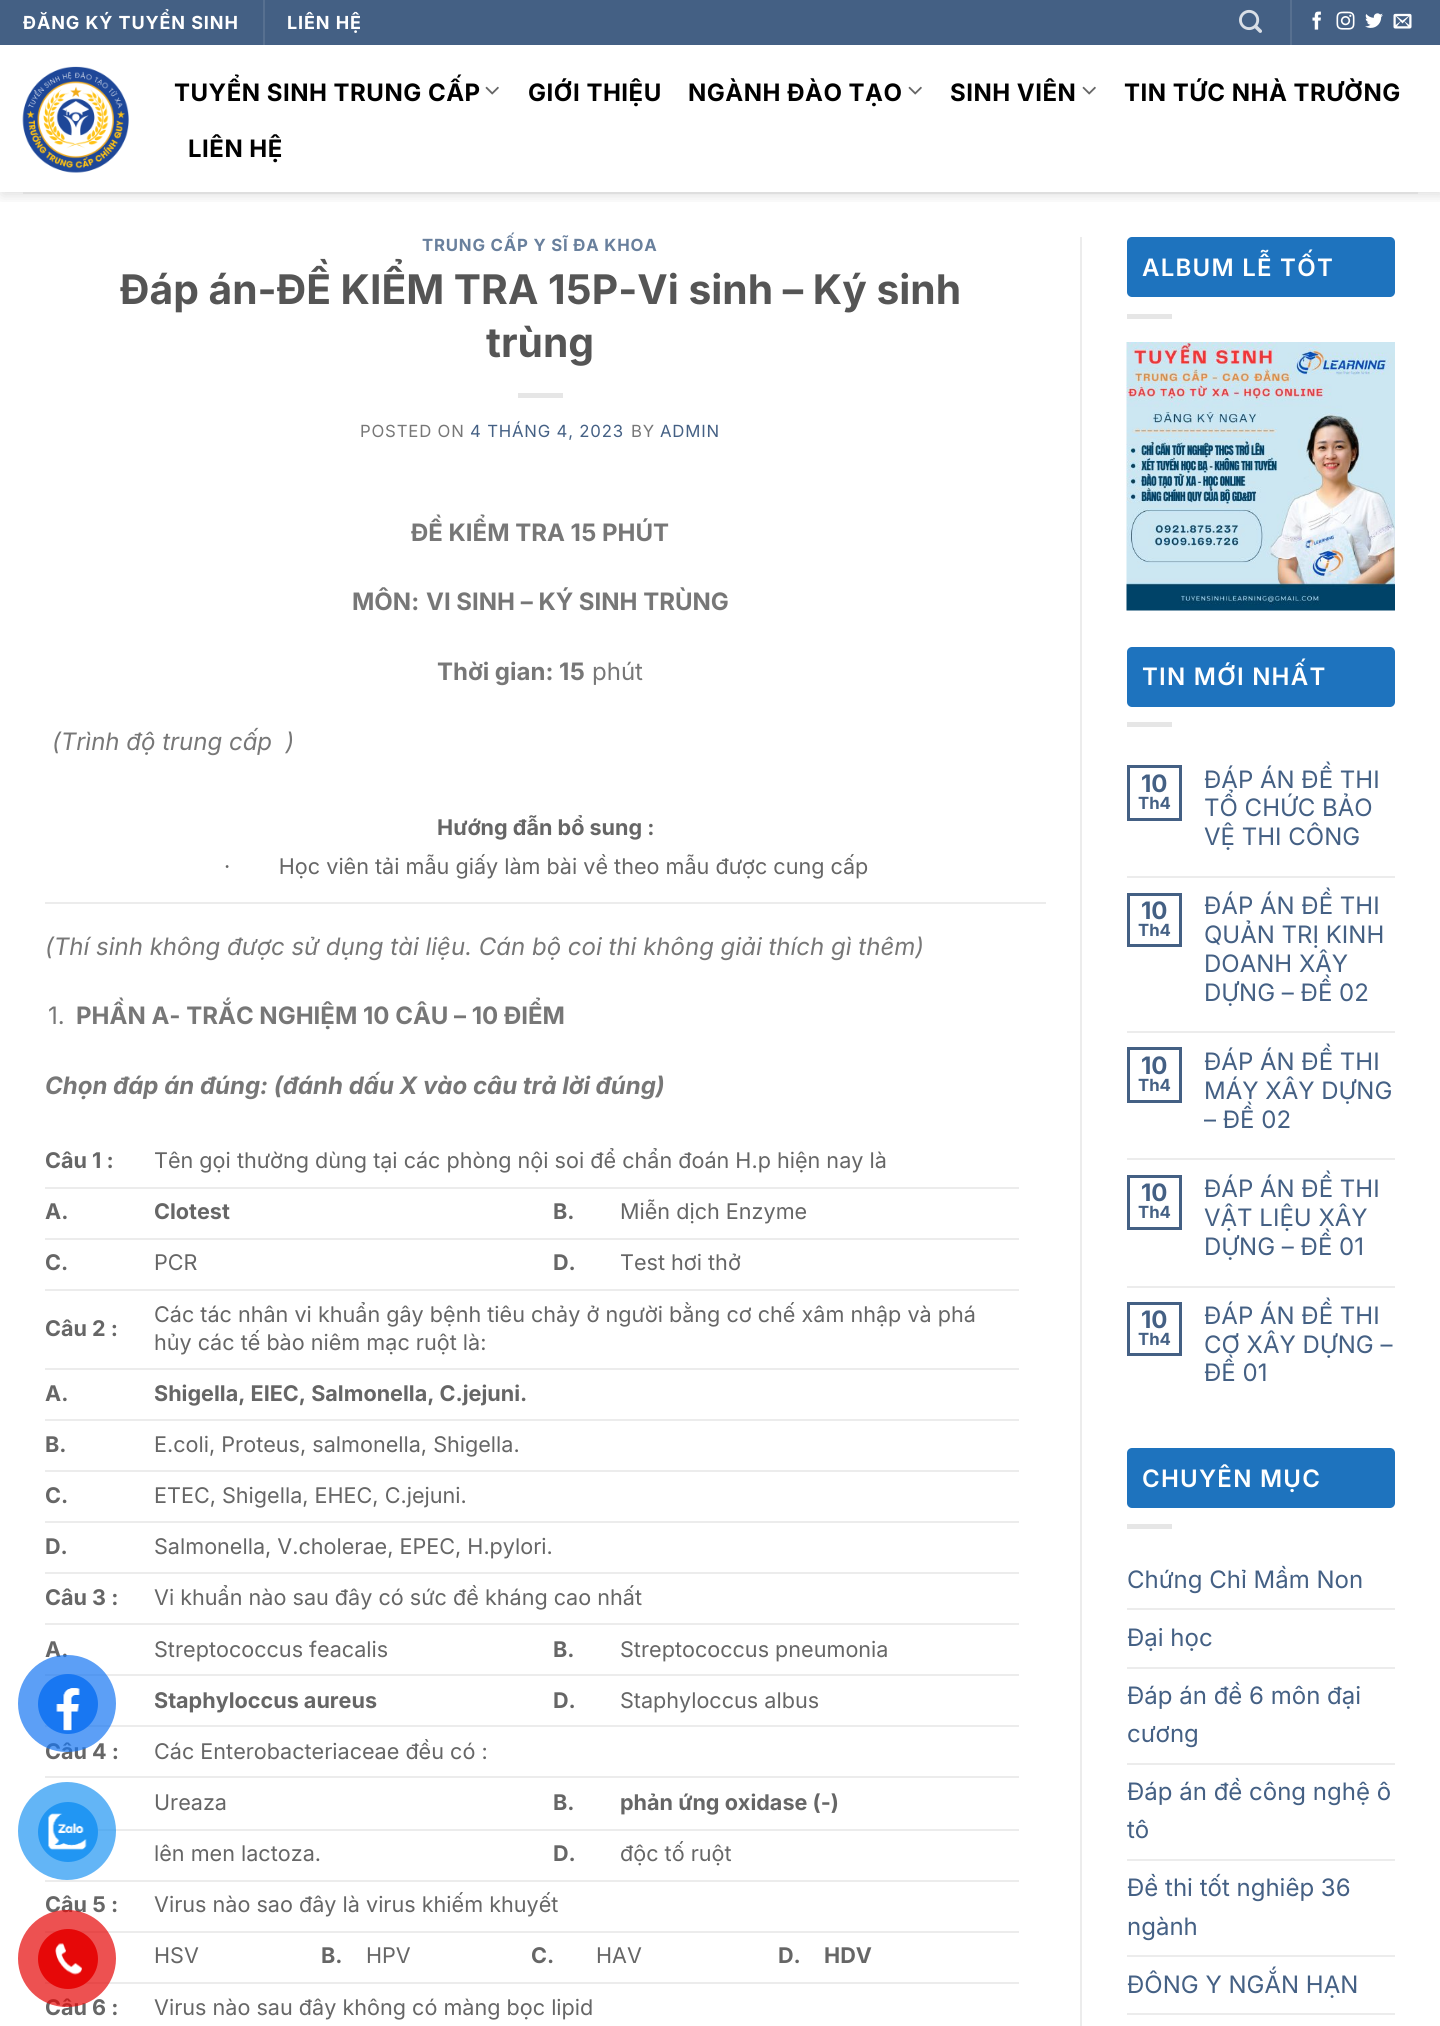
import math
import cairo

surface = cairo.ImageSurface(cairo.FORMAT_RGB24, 1440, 2026)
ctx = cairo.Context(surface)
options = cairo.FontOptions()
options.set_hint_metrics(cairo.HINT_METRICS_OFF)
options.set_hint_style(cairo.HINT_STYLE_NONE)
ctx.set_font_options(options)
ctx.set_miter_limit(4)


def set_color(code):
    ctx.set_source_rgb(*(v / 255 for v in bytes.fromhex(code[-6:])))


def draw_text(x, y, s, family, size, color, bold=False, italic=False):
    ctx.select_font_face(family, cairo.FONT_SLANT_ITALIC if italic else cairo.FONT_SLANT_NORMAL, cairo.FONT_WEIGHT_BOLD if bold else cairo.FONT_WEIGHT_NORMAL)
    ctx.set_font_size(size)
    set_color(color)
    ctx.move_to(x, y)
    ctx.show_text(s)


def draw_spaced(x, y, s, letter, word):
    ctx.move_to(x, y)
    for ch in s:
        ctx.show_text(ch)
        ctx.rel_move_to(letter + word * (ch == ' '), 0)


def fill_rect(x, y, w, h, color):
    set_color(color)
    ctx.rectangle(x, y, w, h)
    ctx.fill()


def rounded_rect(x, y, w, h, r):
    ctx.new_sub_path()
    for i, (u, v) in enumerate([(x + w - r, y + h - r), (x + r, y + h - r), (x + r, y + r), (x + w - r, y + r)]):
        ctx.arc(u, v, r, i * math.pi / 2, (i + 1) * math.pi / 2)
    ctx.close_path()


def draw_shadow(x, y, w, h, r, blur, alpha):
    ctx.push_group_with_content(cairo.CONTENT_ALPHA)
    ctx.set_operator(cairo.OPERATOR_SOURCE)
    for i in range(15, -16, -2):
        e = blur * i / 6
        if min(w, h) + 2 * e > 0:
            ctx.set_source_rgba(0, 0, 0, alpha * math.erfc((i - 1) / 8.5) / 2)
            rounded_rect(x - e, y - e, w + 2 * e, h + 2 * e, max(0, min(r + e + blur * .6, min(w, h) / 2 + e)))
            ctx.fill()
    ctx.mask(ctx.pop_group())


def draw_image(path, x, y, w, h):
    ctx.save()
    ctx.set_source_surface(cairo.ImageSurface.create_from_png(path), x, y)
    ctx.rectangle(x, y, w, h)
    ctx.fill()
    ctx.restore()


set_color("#ffffff")
ctx.paint()
ctx.save()
ctx.rectangle(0, 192, 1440, 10)
ctx.clip()
set_color("#000000")
draw_shadow(2, 2, 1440, 192, 0, 7.5, 0.15)
ctx.restore()
fill_rect(0, 0, 1440, 45, "#446084")
ctx.select_font_face("Inter", cairo.FONT_SLANT_NORMAL, cairo.FONT_WEIGHT_BOLD)
ctx.set_font_size(18)
set_color("#ffffff")
draw_spaced(23, 29, "ĐĂNG KÝ TUYỂN SINH", 0.9, 0)
fill_rect(263, 0, 2, 45, "#577090")
set_color("#ffffff")
draw_spaced(287, 29, "LIÊN HỆ", 0.9, 0)
draw_image("assets/img1.png", 1239, 9, 23, 24)
fill_rect(1290, 0, 2, 45, "#577090")
draw_image("assets/img2.png", 1312, 11, 9, 19)
draw_image("assets/img3.png", 1336, 11, 19, 19)
draw_image("assets/img4.png", 1365, 13, 18, 15)
draw_image("assets/img5.png", 1393, 13, 19, 16)
draw_image("assets/img6.png", 22, 66, 107, 107)
ctx.set_font_size(24)
set_color("#000000")
draw_spaced(174, 101, "TUYỂN SINH TRUNG CẤP", 0.5, 0)
draw_image("assets/img7.png", 485, 86, 14, 9)
draw_spaced(528, 101, "GIỚI THIỆU", 0.5, 0)
draw_spaced(688, 101, "NGÀNH ĐÀO TẠO", 0.5, 0)
draw_image("assets/img7.png", 908, 86, 14, 9)
draw_spaced(950, 101, "SINH VIÊN", 0.5, 0)
draw_image("assets/img7.png", 1082, 86, 14, 9)
draw_spaced(1124, 101, "TIN TỨC NHÀ TRƯỜNG", 0.5, 0)
draw_spaced(188, 157, "LIÊN HỆ", 0.5, 0)
fill_rect(23, 192, 1395, 2, "#dedede")
ctx.set_font_size(16.75)
set_color("#69809d")
draw_spaced(422, 251, "TRUNG CẤP Y SĨ ĐA KHOA", 0.8, 0)
draw_text(120, 304, "Đáp án-ĐỀ KIỂM TRA 15P-Vi sinh – Ký sinh", "Inter", 40.8, "#555555", bold=True)
draw_text(486, 357, "trùng", "Inter", 40.8, "#555555", bold=True)
fill_rect(518, 393, 45, 5, "#e6e6e6")
ctx.select_font_face("Inter")
ctx.set_font_size(16.75)
set_color("#777777")
draw_spaced(360, 437, "POSTED ON", 0.8, 0)
set_color("#446084")
draw_spaced(470, 437, "4 THÁNG 4, 2023", 0.8, 0)
set_color("#777777")
draw_spaced(631, 437, "BY", 0.8, 0)
set_color("#446084")
draw_spaced(660, 437, "ADMIN", 0.8, 0)
draw_text(411, 541, "ĐỀ KIỂM TRA 15 PHÚT", "Inter", 24, "#777777", bold=True)
draw_text(352, 610, "MÔN:", "Inter", 24, "#777777", bold=True)
draw_text(426, 610, "VI SINH – KÝ SINH TRÙNG", "Inter", 24, "#777777", bold=True)
draw_text(437, 680, "Thời gian: 15", "Inter", 24, "#777777", bold=True)
draw_text(592, 680, "phút", "Inter", 24, "#777777")
draw_text(52, 750, "(Trình độ trung cấp  )", "Inter", 24, "#777777", italic=True)
fill_rect(45, 902, 1001, 2, "#ececec")
draw_text(437, 835, "Hướng đẫn bổ sung :", "Inter", 21.6, "#666666", bold=True)
draw_text(224, 874, "·        Học viên tải mẫu giấy làm bài về theo mẫu được cung cấp", "Inter", 21.6, "#666666")
draw_text(45, 955, "(Thí sinh không được sử dụng tài liệu. Cán bộ coi thi không giải thích gì thêm)", "Inter", 24, "#777777", italic=True)
draw_text(48, 1024, "1.", "Inter", 24, "#777777")
draw_text(76, 1024, "PHẦN A- TRẮC NGHIỆM 10 CÂU – 10 ĐIỂM", "Inter", 24, "#777777", bold=True)
draw_text(45, 1094, "Chọn đáp án đúng: (đánh dấu X vào câu trả lời đúng)", "Inter", 24, "#777777", bold=True, italic=True)
fill_rect(45, 1187, 974, 2, "#ececec")
draw_text(45, 1168, "Câu 1 :", "Inter", 21.6, "#666666", bold=True)
draw_text(154, 1168, "Tên gọi thường dùng tại các phòng nội soi để chẩn đoán H.p hiện nay là", "Inter", 21.6, "#666666")
fill_rect(45, 1238, 974, 2, "#ececec")
draw_text(45, 1219, "A.", "Inter", 21.6, "#666666", bold=True)
draw_text(154, 1219, "Clotest", "Inter", 21.6, "#666666", bold=True)
draw_text(553, 1219, "B.", "Inter", 21.6, "#666666", bold=True)
draw_text(620, 1219, "Miễn dịch Enzyme", "Inter", 21.6, "#666666")
fill_rect(45, 1289, 974, 2, "#ececec")
draw_text(45, 1270, "C.", "Inter", 21.6, "#666666", bold=True)
draw_text(154, 1270, "PCR", "Inter", 21.6, "#666666")
draw_text(553, 1270, "D.", "Inter", 21.6, "#666666", bold=True)
draw_text(620, 1270, "Test hơi thở", "Inter", 21.6, "#666666")
fill_rect(45, 1368, 974, 2, "#ececec")
draw_text(45, 1336, "Câu 2 :", "Inter", 21.6, "#666666", bold=True)
draw_text(154, 1322, "Các tác nhân vi khuẩn gây bệnh tiêu chảy ở người bằng cơ chế xâm nhập và phá", "Inter", 21.6, "#666666")
draw_text(154, 1350, "hủy các tế bào niêm mạc ruột là:", "Inter", 21.6, "#666666")
fill_rect(45, 1419, 974, 2, "#ececec")
draw_text(45, 1401, "A.", "Inter", 21.6, "#666666", bold=True)
draw_text(154, 1401, "Shigella, EIEC, Salmonella, C.jejuni.", "Inter", 21.6, "#666666", bold=True)
fill_rect(45, 1470, 974, 2, "#ececec")
draw_text(45, 1452, "B.", "Inter", 21.6, "#666666", bold=True)
draw_text(154, 1452, "E.coli, Proteus, salmonella, Shigella.", "Inter", 21.6, "#666666")
fill_rect(45, 1521, 974, 2, "#ececec")
draw_text(45, 1503, "C.", "Inter", 21.6, "#666666", bold=True)
draw_text(154, 1503, "ETEC, Shigella, EHEC, C.jejuni.", "Inter", 21.6, "#666666")
fill_rect(45, 1572, 974, 2, "#ececec")
draw_text(45, 1554, "D.", "Inter", 21.6, "#666666", bold=True)
draw_text(154, 1554, "Salmonella, V.cholerae, EPEC, H.pylori.", "Inter", 21.6, "#666666")
fill_rect(45, 1623, 974, 2, "#ececec")
draw_text(45, 1605, "Câu 3 :", "Inter", 21.6, "#666666", bold=True)
draw_text(154, 1605, "Vi khuẩn nào sau đây có sức đề kháng cao nhất", "Inter", 21.6, "#666666")
fill_rect(45, 1674, 974, 2, "#ececec")
draw_text(45, 1657, "A.", "Inter", 21.6, "#666666", bold=True)
draw_text(154, 1657, "Streptococcus feacalis", "Inter", 21.6, "#666666")
draw_text(553, 1657, "B.", "Inter", 21.6, "#666666", bold=True)
draw_text(620, 1657, "Streptococcus pneumonia", "Inter", 21.6, "#666666")
draw_text(154, 1708, "Staphyloccus aureus", "Inter", 21.6, "#666666", bold=True)
draw_text(553, 1708, "D.", "Inter", 21.6, "#666666", bold=True)
draw_text(620, 1708, "Staphyloccus albus", "Inter", 21.6, "#666666")
fill_rect(45, 1725, 974, 2, "#ececec")
fill_rect(45, 1776, 974, 2, "#ececec")
draw_text(45, 1759, "Câu 4 :", "Inter", 21.6, "#666666", bold=True)
draw_text(154, 1759, "Các Enterobacteriaceae đều có :", "Inter", 21.6, "#666666")
draw_text(154, 1810, "Ureaza", "Inter", 21.6, "#666666")
draw_text(553, 1810, "B.", "Inter", 21.6, "#666666", bold=True)
draw_text(620, 1810, "phản ứng oxidase (-)", "Inter", 21.6, "#666666", bold=True)
fill_rect(97, 1829, 922, 2, "#ececec")
draw_text(154, 1861, "lên men lactoza.", "Inter", 21.6, "#666666")
draw_text(553, 1861, "D.", "Inter", 21.6, "#666666", bold=True)
draw_text(620, 1861, "độc tố ruột", "Inter", 21.6, "#666666")
fill_rect(45, 1880, 974, 2, "#ececec")
fill_rect(45, 1931, 974, 2, "#ececec")
draw_text(45, 1912, "Câu 5 :", "Inter", 21.6, "#666666", bold=True)
draw_text(154, 1912, "Virus nào sao đây là virus khiếm khuyết", "Inter", 21.6, "#666666")
draw_text(154, 1963, "HSV", "Inter", 21.6, "#666666")
draw_text(321, 1963, "B.", "Inter", 21.6, "#666666", bold=True)
draw_text(366, 1963, "HPV", "Inter", 21.6, "#666666")
draw_text(531, 1963, "C.", "Inter", 21.6, "#666666", bold=True)
draw_text(596, 1963, "HAV", "Inter", 21.6, "#666666")
draw_text(778, 1963, "D.", "Inter", 21.6, "#666666", bold=True)
draw_text(824, 1963, "HDV", "Inter", 21.6, "#666666", bold=True)
fill_rect(45, 1982, 974, 2, "#ececec")
draw_text(45, 2015, "Câu 6 :", "Inter", 21.6, "#666666", bold=True)
draw_text(154, 2015, "Virus nào sau đây không có màng bọc lipid", "Inter", 21.6, "#666666")
fill_rect(1080, 237, 2, 1789, "#ececec")
set_color("#1e73be")
rounded_rect(1127, 237, 268, 60, 5)
ctx.fill()
ctx.select_font_face("Inter SemiBold")
ctx.set_font_size(24)
set_color("#ffffff")
draw_spaced(1142, 276, "ALBUM LỄ TỐT", 1.25, 0)
fill_rect(1127, 314, 45, 5, "#e6e6e6")
draw_image("assets/img8.png", 1126, 342, 269, 269)
set_color("#1e73be")
rounded_rect(1127, 647, 268, 60, 5)
ctx.fill()
set_color("#ffffff")
draw_spaced(1142, 685, "TIN MỚI NHẤT", 1.25, 0)
fill_rect(1127, 722, 45, 5, "#e6e6e6")
ctx.rectangle(1128.5, 766.5, 52, 53)
set_color("#446084")
ctx.set_line_width(3)
ctx.stroke()
draw_text(1141, 792, "10", "Inter", 24, "#446084", bold=True)
draw_text(1138, 809, "Th4", "Inter", 16.75, "#446084", bold=True)
draw_text(1204, 788, "ĐÁP ÁN ĐỀ THI", "Inter", 24, "#446084")
draw_text(1204, 816, "TỔ CHỨC BẢO", "Inter", 24, "#446084")
draw_text(1204, 845, "VỆ THI CÔNG", "Inter", 24, "#446084")
fill_rect(1127, 876, 268, 2, "#ececec")
ctx.rectangle(1128.5, 894.5, 52, 51)
set_color("#446084")
ctx.stroke()
draw_text(1141, 919, "10", "Inter", 24, "#446084", bold=True)
draw_text(1138, 936, "Th4", "Inter", 16.75, "#446084", bold=True)
draw_text(1204, 914, "ĐÁP ÁN ĐỀ THI", "Inter", 24, "#446084")
draw_text(1204, 943, "QUẢN TRỊ KINH", "Inter", 24, "#446084")
draw_text(1204, 972, "DOANH XÂY", "Inter", 24, "#446084")
draw_text(1204, 1001, "DỰNG – ĐỀ 02", "Inter", 24, "#446084")
fill_rect(1127, 1031, 268, 2, "#ececec")
ctx.rectangle(1128.5, 1048.5, 52, 53)
set_color("#446084")
ctx.stroke()
draw_text(1141, 1074, "10", "Inter", 24, "#446084", bold=True)
draw_text(1138, 1091, "Th4", "Inter", 16.75, "#446084", bold=True)
draw_text(1204, 1070, "ĐÁP ÁN ĐỀ THI", "Inter", 24, "#446084")
draw_text(1204, 1099, "MÁY XÂY DỰNG", "Inter", 24, "#446084")
draw_text(1204, 1128, "– ĐỀ 02", "Inter", 24, "#446084")
fill_rect(1127, 1158, 268, 2, "#ececec")
ctx.rectangle(1128.5, 1176.5, 52, 52)
set_color("#446084")
ctx.stroke()
draw_text(1141, 1201, "10", "Inter", 24, "#446084", bold=True)
draw_text(1138, 1218, "Th4", "Inter", 16.75, "#446084", bold=True)
draw_text(1204, 1197, "ĐÁP ÁN ĐỀ THI", "Inter", 24, "#446084")
draw_text(1204, 1226, "VẬT LIỆU XÂY", "Inter", 24, "#446084")
draw_text(1204, 1255, "DỰNG – ĐỀ 01", "Inter", 24, "#446084")
fill_rect(1127, 1286, 268, 2, "#ececec")
ctx.rectangle(1128.5, 1303.5, 52, 51)
set_color("#446084")
ctx.stroke()
draw_text(1141, 1328, "10", "Inter", 24, "#446084", bold=True)
draw_text(1138, 1345, "Th4", "Inter", 16.75, "#446084", bold=True)
draw_text(1204, 1324, "ĐÁP ÁN ĐỀ THI", "Inter", 24, "#446084")
draw_text(1204, 1353, "CƠ XÂY DỰNG –", "Inter", 24, "#446084")
draw_text(1204, 1381, "ĐỀ 01", "Inter", 24, "#446084")
set_color("#1e73be")
rounded_rect(1127, 1448, 268, 60, 5)
ctx.fill()
ctx.select_font_face("Inter SemiBold")
set_color("#ffffff")
draw_spaced(1142, 1487, "CHUYÊN MỤC", 1.25, 0)
fill_rect(1127, 1524, 45, 5, "#e6e6e6")
draw_text(1127, 1588, "Chứng Chỉ Mầm Non", "Inter", 24, "#446084")
fill_rect(1127, 1608, 268, 2, "#ececec")
draw_text(1127, 1646, "Đại học", "Inter", 24, "#446084")
fill_rect(1127, 1667, 268, 2, "#ececec")
draw_text(1127, 1704, "Đáp án đề 6 môn đại", "Inter", 24, "#446084")
draw_text(1127, 1742, "cương", "Inter", 24, "#446084")
fill_rect(1127, 1763, 268, 2, "#ececec")
draw_text(1127, 1800, "Đáp án đề công nghệ ô", "Inter", 24, "#446084")
draw_text(1127, 1838, "tô", "Inter", 24, "#446084")
fill_rect(1127, 1859, 268, 2, "#ececec")
draw_text(1127, 1896, "Đề thi tốt nghiêp 36", "Inter", 24, "#446084")
draw_text(1127, 1935, "ngành", "Inter", 24, "#446084")
fill_rect(1127, 1955, 268, 2, "#ececec")
draw_text(1127, 1993, "ĐÔNG Y NGẮN HẠN", "Inter", 24, "#446084")
fill_rect(1127, 2013, 268, 2, "#ececec")
ctx.set_source_rgba(0.094, 0.467, 0.949, 0.7)
rounded_rect(18, 1655, 98, 97, 48.5)
ctx.fill()
set_color("#1877f2")
ctx.arc(68, 1704, 30, 0, 2 * math.pi)
ctx.fill()
draw_image("assets/img9.png", 56, 1688, 24, 43)
ctx.set_source_rgba(0.129, 0.588, 0.953, 0.7)
ctx.arc(67, 1831, 49, 0, 2 * math.pi)
ctx.fill()
set_color("#2196f3")
ctx.arc(68, 1832, 30, 0, 2 * math.pi)
ctx.fill()
draw_image("assets/img10.png", 48, 1813, 39, 37)
ctx.set_source_rgba(0.902, 0.031, 0.031, 0.7)
rounded_rect(18, 1910, 98, 97, 48.5)
ctx.fill()
set_color("#e60808")
ctx.arc(68, 1959, 30, 0, 2 * math.pi)
ctx.fill()
draw_image("assets/img11.png", 55, 1943, 27, 32)
surface.write_to_png("output.png")
